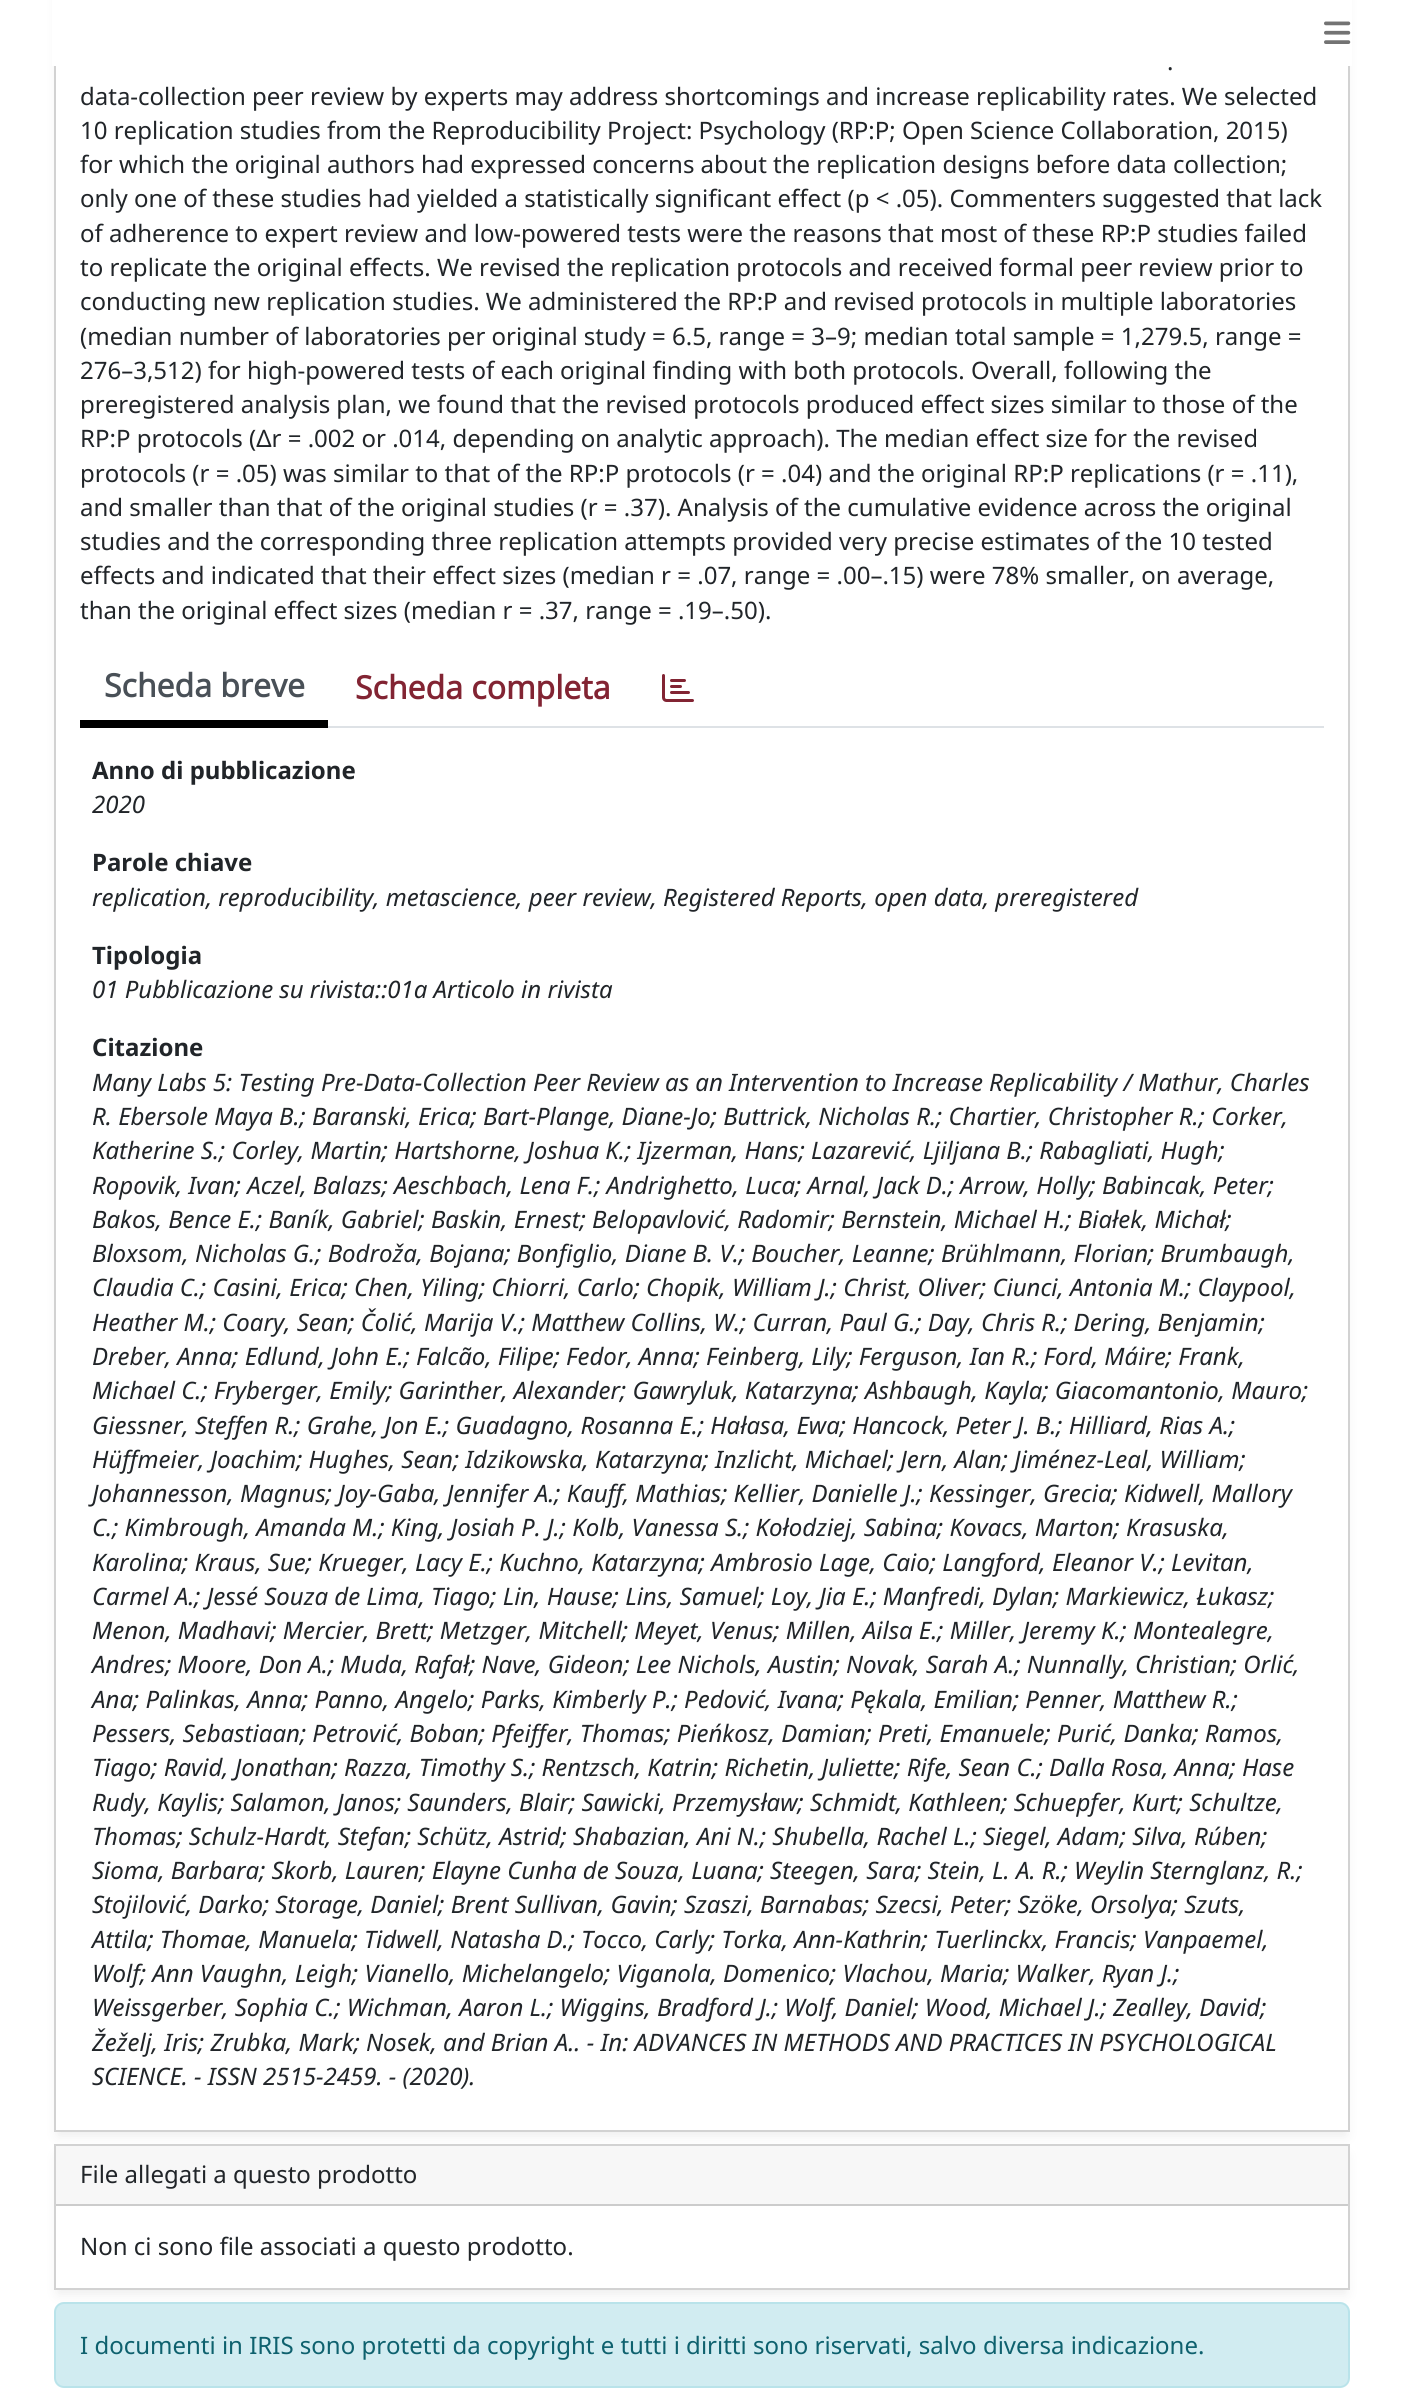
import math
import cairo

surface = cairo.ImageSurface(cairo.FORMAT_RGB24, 1403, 2404)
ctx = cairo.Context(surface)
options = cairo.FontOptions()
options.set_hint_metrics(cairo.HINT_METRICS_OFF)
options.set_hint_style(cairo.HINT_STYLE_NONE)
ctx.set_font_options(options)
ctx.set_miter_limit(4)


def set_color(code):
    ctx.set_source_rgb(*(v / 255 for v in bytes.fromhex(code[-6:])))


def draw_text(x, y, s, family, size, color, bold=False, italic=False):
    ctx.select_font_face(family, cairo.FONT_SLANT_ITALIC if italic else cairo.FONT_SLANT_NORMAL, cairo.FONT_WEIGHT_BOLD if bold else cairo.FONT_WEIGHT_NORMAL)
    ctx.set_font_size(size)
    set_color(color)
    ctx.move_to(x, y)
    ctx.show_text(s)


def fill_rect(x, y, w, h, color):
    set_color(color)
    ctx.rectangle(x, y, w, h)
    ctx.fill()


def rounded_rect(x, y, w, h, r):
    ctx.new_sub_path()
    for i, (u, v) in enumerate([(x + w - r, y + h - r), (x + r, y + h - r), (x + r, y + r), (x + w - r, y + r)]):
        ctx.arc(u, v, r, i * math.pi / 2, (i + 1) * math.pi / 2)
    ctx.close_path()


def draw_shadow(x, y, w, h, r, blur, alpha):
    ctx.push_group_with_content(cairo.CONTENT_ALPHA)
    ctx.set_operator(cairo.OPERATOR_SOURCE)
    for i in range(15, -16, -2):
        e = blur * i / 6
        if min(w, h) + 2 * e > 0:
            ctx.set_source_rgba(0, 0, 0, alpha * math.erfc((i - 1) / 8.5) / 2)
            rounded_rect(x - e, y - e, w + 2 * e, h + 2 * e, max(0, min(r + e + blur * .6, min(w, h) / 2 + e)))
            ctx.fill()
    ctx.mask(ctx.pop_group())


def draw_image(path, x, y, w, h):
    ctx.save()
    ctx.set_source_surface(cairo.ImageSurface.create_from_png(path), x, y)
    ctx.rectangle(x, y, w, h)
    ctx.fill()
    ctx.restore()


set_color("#ffffff")
ctx.paint()
ctx.save()
ctx.set_fill_rule(cairo.FILL_RULE_EVEN_ODD)
ctx.new_path()
ctx.move_to(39, 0)
ctx.line_to(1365, 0)
ctx.line_to(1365, 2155)
ctx.line_to(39, 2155)
ctx.close_path()
ctx.move_to(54, -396)
ctx.line_to(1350, -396)
ctx.line_to(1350, 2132)
ctx.line_to(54, 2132)
ctx.close_path()
ctx.clip()
set_color("#eeeeee")
draw_shadow(58, -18, 1288, 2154, 0, 6, 1)
ctx.restore()
ctx.rectangle(55, -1, 1294, 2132)
set_color("#d2d2d2")
ctx.stroke()
fill_rect(52, 0, 1300, 66, "#ffffff")
draw_image("assets/img1.png", 1324, 21, 27, 23)
draw_text(1167, 70, ".", "Noto Sans", 24, "#212529")
draw_text(80, 105, "data-collection peer review by experts may address shortcomings and increase replicability rates. We selected", "Noto Sans", 24, "#212529")
draw_text(80, 139, "10 replication studies from the Reproducibility Project: Psychology (RP:P; Open Science Collaboration, 2015)", "Noto Sans", 24, "#212529")
draw_text(80, 173, "for which the original authors had expressed concerns about the replication designs before data collection;", "Noto Sans", 24, "#212529")
draw_text(80, 207, "only one of these studies had yielded a statistically significant effect (p < .05). Commenters suggested that lack", "Noto Sans", 24, "#212529")
draw_text(80, 242, "of adherence to expert review and low-powered tests were the reasons that most of these RP:P studies failed", "Noto Sans", 24, "#212529")
draw_text(80, 276, "to replicate the original effects. We revised the replication protocols and received formal peer review prior to", "Noto Sans", 24, "#212529")
draw_text(80, 310, "conducting new replication studies. We administered the RP:P and revised protocols in multiple laboratories", "Noto Sans", 24, "#212529")
draw_text(80, 345, "(median number of laboratories per original study = 6.5, range = 3–9; median total sample = 1,279.5, range =", "Noto Sans", 24, "#212529")
draw_text(80, 379, "276–3,512) for high-powered tests of each original finding with both protocols. Overall, following the", "Noto Sans", 24, "#212529")
draw_text(80, 413, "preregistered analysis plan, we found that the revised protocols produced effect sizes similar to those of the", "Noto Sans", 24, "#212529")
draw_text(80, 447, "RP:P protocols (Δr = .002 or .014, depending on analytic approach). The median effect size for the revised", "Noto Sans", 24, "#212529")
draw_text(80, 482, "protocols (r = .05) was similar to that of the RP:P protocols (r = .04) and the original RP:P replications (r = .11),", "Noto Sans", 24, "#212529")
draw_text(80, 516, "and smaller than that of the original studies (r = .37). Analysis of the cumulative evidence across the original", "Noto Sans", 24, "#212529")
draw_text(80, 550, "studies and the corresponding three replication attempts provided very precise estimates of the 10 tested", "Noto Sans", 24, "#212529")
draw_text(80, 584, "effects and indicated that their effect sizes (median r = .07, range = .00–.15) were 78% smaller, on average,", "Noto Sans", 24, "#212529")
draw_text(80, 619, "than the original effect sizes (median r = .37, range = .19–.50).", "Noto Sans", 24, "#212529")
fill_rect(328, 726, 996, 2, "#dee2e6")
fill_rect(80, 720, 248, 8, "#000000")
draw_text(104, 697, "Scheda breve", "Open Sans", 32, "#495057", bold=True)
draw_text(355, 699, "Scheda completa", "Open Sans", 32, "#822433", bold=True)
draw_image("assets/img2.png", 662, 674, 32, 28)
draw_text(92, 779, "Anno di pubblicazione", "Noto Sans", 24, "#212529", bold=True)
draw_text(92, 813, "2020", "Noto Sans", 24, "#212529", italic=True)
draw_text(92, 871, "Parole chiave", "Noto Sans", 24, "#212529", bold=True)
draw_text(92, 906, "replication, reproducibility, metascience, peer review, Registered Reports, open data, preregistered", "Noto Sans", 24, "#212529", italic=True)
draw_text(92, 964, "Tipologia", "Noto Sans", 24, "#212529", bold=True)
draw_text(92, 998, "01 Pubblicazione su rivista::01a Articolo in rivista", "Noto Sans", 24, "#212529", italic=True)
draw_text(92, 1056, "Citazione", "Noto Sans", 24, "#212529", bold=True)
draw_text(92, 1091, "Many Labs 5: Testing Pre-Data-Collection Peer Review as an Intervention to Increase Replicability / Mathur, Charles", "Noto Sans", 24, "#212529", italic=True)
draw_text(92, 1125, "R. Ebersole Maya B.; Baranski, Erica; Bart-Plange, Diane-Jo; Buttrick, Nicholas R.; Chartier, Christopher R.; Corker,", "Noto Sans", 24, "#212529", italic=True)
draw_text(92, 1159, "Katherine S.; Corley, Martin; Hartshorne, Joshua K.; Ijzerman, Hans; Lazarević, Ljiljana B.; Rabagliati, Hugh;", "Noto Sans", 24, "#212529", italic=True)
draw_text(92, 1194, "Ropovik, Ivan; Aczel, Balazs; Aeschbach, Lena F.; Andrighetto, Luca; Arnal, Jack D.; Arrow, Holly; Babincak, Peter;", "Noto Sans", 24, "#212529", italic=True)
draw_text(92, 1228, "Bakos, Bence E.; Baník, Gabriel; Baskin, Ernest; Belopavlović, Radomir; Bernstein, Michael H.; Białek, Michał;", "Noto Sans", 24, "#212529", italic=True)
draw_text(92, 1262, "Bloxsom, Nicholas G.; Bodroža, Bojana; Bonfiglio, Diane B. V.; Boucher, Leanne; Brühlmann, Florian; Brumbaugh,", "Noto Sans", 24, "#212529", italic=True)
draw_text(92, 1296, "Claudia C.; Casini, Erica; Chen, Yiling; Chiorri, Carlo; Chopik, William J.; Christ, Oliver; Ciunci, Antonia M.; Claypool,", "Noto Sans", 24, "#212529", italic=True)
draw_text(92, 1331, "Heather M.; Coary, Sean; Čolić, Marija V.; Matthew Collins, W.; Curran, Paul G.; Day, Chris R.; Dering, Benjamin;", "Noto Sans", 24, "#212529", italic=True)
draw_text(92, 1365, "Dreber, Anna; Edlund, John E.; Falcão, Filipe; Fedor, Anna; Feinberg, Lily; Ferguson, Ian R.; Ford, Máire; Frank,", "Noto Sans", 24, "#212529", italic=True)
draw_text(92, 1399, "Michael C.; Fryberger, Emily; Garinther, Alexander; Gawryluk, Katarzyna; Ashbaugh, Kayla; Giacomantonio, Mauro;", "Noto Sans", 24, "#212529", italic=True)
draw_text(92, 1434, "Giessner, Steffen R.; Grahe, Jon E.; Guadagno, Rosanna E.; Hałasa, Ewa; Hancock, Peter J. B.; Hilliard, Rias A.;", "Noto Sans", 24, "#212529", italic=True)
draw_text(92, 1468, "Hüffmeier, Joachim; Hughes, Sean; Idzikowska, Katarzyna; Inzlicht, Michael; Jern, Alan; Jiménez-Leal, William;", "Noto Sans", 24, "#212529", italic=True)
draw_text(92, 1502, "Johannesson, Magnus; Joy-Gaba, Jennifer A.; Kauff, Mathias; Kellier, Danielle J.; Kessinger, Grecia; Kidwell, Mallory", "Noto Sans", 24, "#212529", italic=True)
draw_text(92, 1536, "C.; Kimbrough, Amanda M.; King, Josiah P. J.; Kolb, Vanessa S.; Kołodziej, Sabina; Kovacs, Marton; Krasuska,", "Noto Sans", 24, "#212529", italic=True)
draw_text(92, 1571, "Karolina; Kraus, Sue; Krueger, Lacy E.; Kuchno, Katarzyna; Ambrosio Lage, Caio; Langford, Eleanor V.; Levitan,", "Noto Sans", 24, "#212529", italic=True)
draw_text(92, 1605, "Carmel A.; Jessé Souza de Lima, Tiago; Lin, Hause; Lins, Samuel; Loy, Jia E.; Manfredi, Dylan; Markiewicz, Łukasz;", "Noto Sans", 24, "#212529", italic=True)
draw_text(92, 1639, "Menon, Madhavi; Mercier, Brett; Metzger, Mitchell; Meyet, Venus; Millen, Ailsa E.; Miller, Jeremy K.; Montealegre,", "Noto Sans", 24, "#212529", italic=True)
draw_text(92, 1673, "Andres; Moore, Don A.; Muda, Rafał; Nave, Gideon; Lee Nichols, Austin; Novak, Sarah A.; Nunnally, Christian; Orlić,", "Noto Sans", 24, "#212529", italic=True)
draw_text(92, 1708, "Ana; Palinkas, Anna; Panno, Angelo; Parks, Kimberly P.; Pedović, Ivana; Pękala, Emilian; Penner, Matthew R.;", "Noto Sans", 24, "#212529", italic=True)
draw_text(92, 1742, "Pessers, Sebastiaan; Petrović, Boban; Pfeiffer, Thomas; Pieńkosz, Damian; Preti, Emanuele; Purić, Danka; Ramos,", "Noto Sans", 24, "#212529", italic=True)
draw_text(92, 1776, "Tiago; Ravid, Jonathan; Razza, Timothy S.; Rentzsch, Katrin; Richetin, Juliette; Rife, Sean C.; Dalla Rosa, Anna; Hase", "Noto Sans", 24, "#212529", italic=True)
draw_text(92, 1811, "Rudy, Kaylis; Salamon, Janos; Saunders, Blair; Sawicki, Przemysław; Schmidt, Kathleen; Schuepfer, Kurt; Schultze,", "Noto Sans", 24, "#212529", italic=True)
draw_text(92, 1845, "Thomas; Schulz-Hardt, Stefan; Schütz, Astrid; Shabazian, Ani N.; Shubella, Rachel L.; Siegel, Adam; Silva, Rúben;", "Noto Sans", 24, "#212529", italic=True)
draw_text(92, 1879, "Sioma, Barbara; Skorb, Lauren; Elayne Cunha de Souza, Luana; Steegen, Sara; Stein, L. A. R.; Weylin Sternglanz, R.;", "Noto Sans", 24, "#212529", italic=True)
draw_text(92, 1913, "Stojilović, Darko; Storage, Daniel; Brent Sullivan, Gavin; Szaszi, Barnabas; Szecsi, Peter; Szöke, Orsolya; Szuts,", "Noto Sans", 24, "#212529", italic=True)
draw_text(92, 1948, "Attila; Thomae, Manuela; Tidwell, Natasha D.; Tocco, Carly; Torka, Ann-Kathrin; Tuerlinckx, Francis; Vanpaemel,", "Noto Sans", 24, "#212529", italic=True)
draw_text(92, 1982, "Wolf; Ann Vaughn, Leigh; Vianello, Michelangelo; Viganola, Domenico; Vlachou, Maria; Walker, Ryan J.;", "Noto Sans", 24, "#212529", italic=True)
draw_text(92, 2016, "Weissgerber, Sophia C.; Wichman, Aaron L.; Wiggins, Bradford J.; Wolf, Daniel; Wood, Michael J.; Zealley, David;", "Noto Sans", 24, "#212529", italic=True)
draw_text(92, 2051, "Žeželj, Iris; Zrubka, Mark; Nosek, and Brian A.. - In: ADVANCES IN METHODS AND PRACTICES IN PSYCHOLOGICAL", "Noto Sans", 24, "#212529", italic=True)
draw_text(92, 2085, "SCIENCE. - ISSN 2515-2459. - (2020).", "Noto Sans", 24, "#212529", italic=True)
set_color("#eeeeee")
draw_shadow(58, 2156, 1288, 138, 0, 6, 1)
fill_rect(56, 2206, 1292, 82, "#ffffff")
ctx.rectangle(55, 2145, 1294, 144)
set_color("#d2d2d2")
ctx.stroke()
fill_rect(56, 2146, 1292, 58, "#f7f7f7")
fill_rect(56, 2204, 1292, 2, "#cccccc")
draw_text(80, 2183, "File allegati a questo prodotto", "Noto Sans", 24, "#212529")
draw_text(80, 2255, "Non ci sono file associati a questo prodotto.", "Noto Sans", 24, "#212529")
set_color("#d1ecf1")
rounded_rect(55, 2303, 1294, 84, 9)
ctx.fill_preserve()
set_color("#b9e3ea")
ctx.stroke()
draw_text(80, 2354, "I documenti in IRIS sono protetti da copyright e tutti i diritti sono riservati, salvo diversa indicazione.", "Noto Sans", 24, "#0e616e")
surface.write_to_png("output.png")
